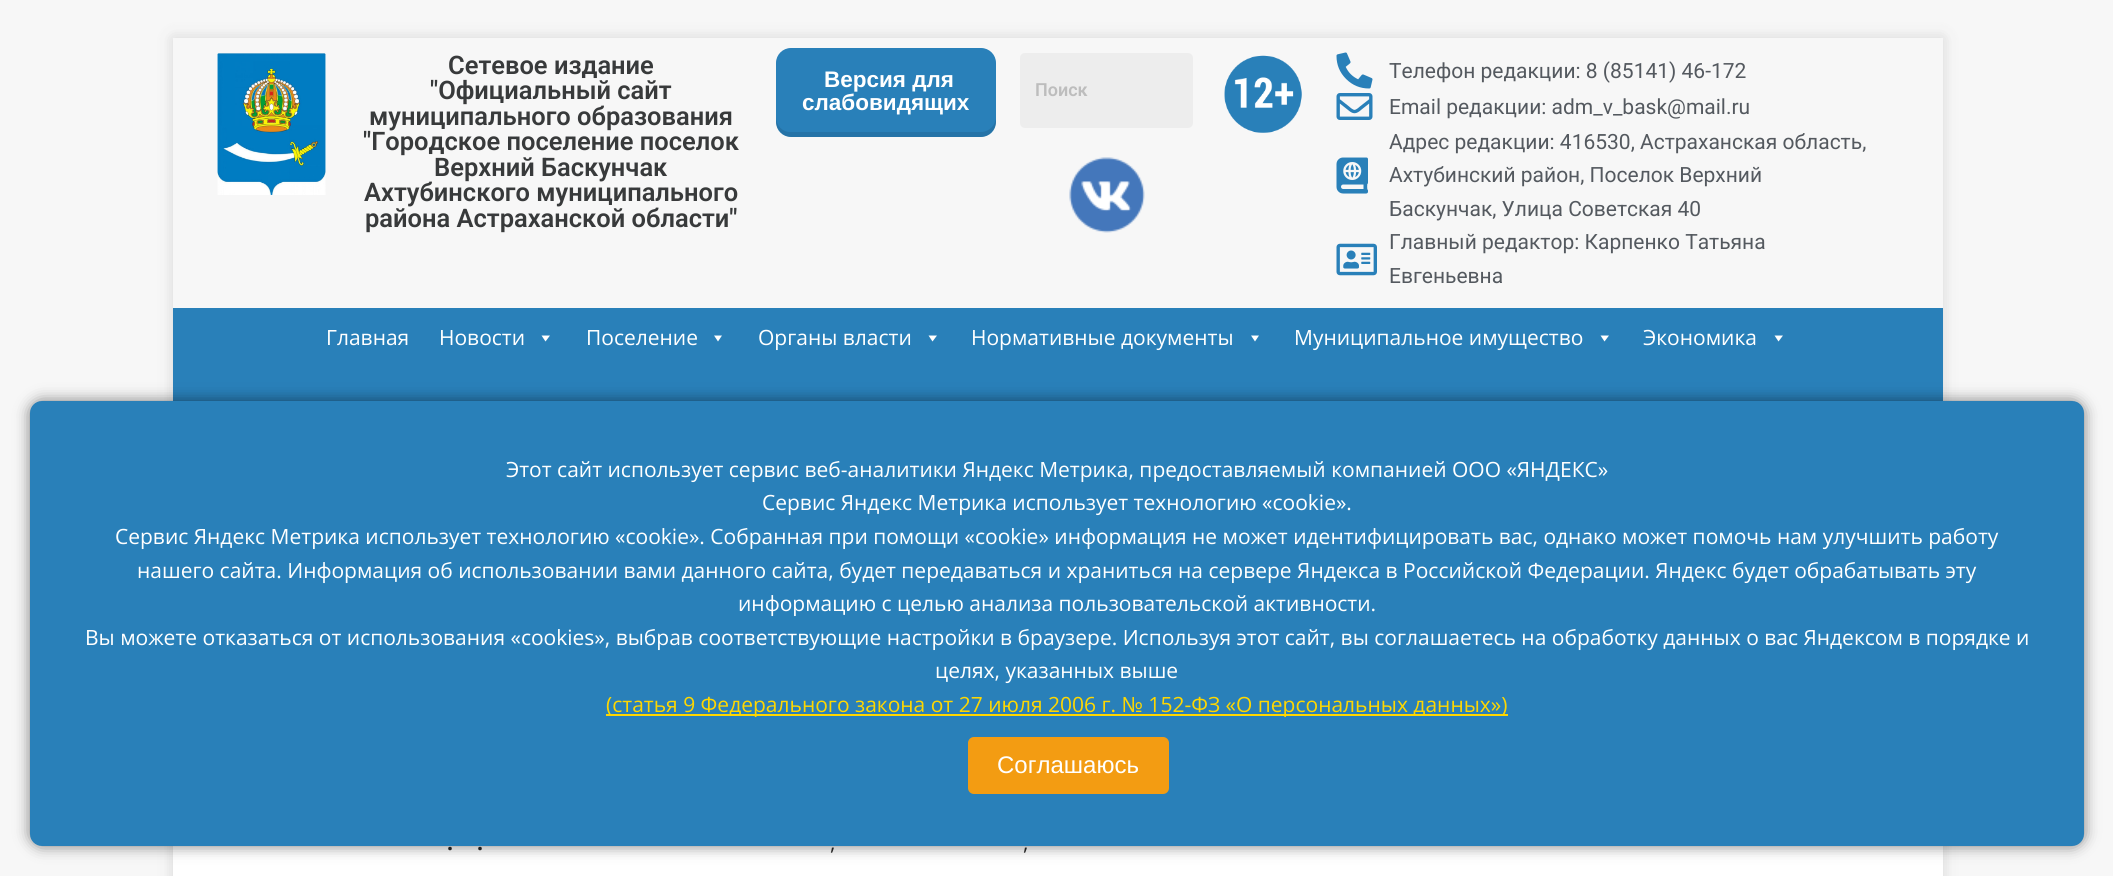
import math
import cairo

surface = cairo.ImageSurface(cairo.FORMAT_RGB24, 2113, 876)
ctx = cairo.Context(surface)
options = cairo.FontOptions()
options.set_hint_metrics(cairo.HINT_METRICS_OFF)
options.set_hint_style(cairo.HINT_STYLE_NONE)
ctx.set_font_options(options)
ctx.set_miter_limit(4)


def set_color(code):
    ctx.set_source_rgb(*(v / 255 for v in bytes.fromhex(code[-6:])))


def draw_text(x, y, s, family, size, color, bold=False, italic=False):
    ctx.select_font_face(family, cairo.FONT_SLANT_ITALIC if italic else cairo.FONT_SLANT_NORMAL, cairo.FONT_WEIGHT_BOLD if bold else cairo.FONT_WEIGHT_NORMAL)
    ctx.set_font_size(size)
    set_color(color)
    ctx.move_to(x, y)
    ctx.show_text(s)


def fill_rect(x, y, w, h, color):
    set_color(color)
    ctx.rectangle(x, y, w, h)
    ctx.fill()


def rounded_rect(x, y, w, h, r):
    ctx.new_sub_path()
    for i, (u, v) in enumerate([(x + w - r, y + h - r), (x + r, y + h - r), (x + r, y + r), (x + w - r, y + r)]):
        ctx.arc(u, v, r, i * math.pi / 2, (i + 1) * math.pi / 2)
    ctx.close_path()


def draw_shadow(x, y, w, h, r, blur, alpha):
    ctx.push_group_with_content(cairo.CONTENT_ALPHA)
    ctx.set_operator(cairo.OPERATOR_SOURCE)
    for i in range(15, -16, -2):
        e = blur * i / 6
        if min(w, h) + 2 * e > 0:
            ctx.set_source_rgba(0, 0, 0, alpha * math.erfc((i - 1) / 8.5) / 2)
            rounded_rect(x - e, y - e, w + 2 * e, h + 2 * e, max(0, min(r + e + blur * .6, min(w, h) / 2 + e)))
            ctx.fill()
    ctx.mask(ctx.pop_group())


def draw_image(path, x, y, w, h):
    ctx.save()
    ctx.set_source_surface(cairo.ImageSurface.create_from_png(path), x, y)
    ctx.rectangle(x, y, w, h)
    ctx.fill()
    ctx.restore()


set_color("#f7f7f7")
ctx.paint()
ctx.save()
ctx.set_fill_rule(cairo.FILL_RULE_EVEN_ODD)
ctx.new_path()
ctx.move_to(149, 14)
ctx.line_to(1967, 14)
ctx.line_to(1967, 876)
ctx.line_to(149, 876)
ctx.close_path()
ctx.move_to(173, 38)
ctx.line_to(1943, 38)
ctx.line_to(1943, 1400)
ctx.line_to(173, 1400)
ctx.close_path()
ctx.clip()
set_color("#323232")
draw_shadow(173, 38, 1770, 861, 0, 7.5, 0.17)
ctx.restore()
draw_image("assets/img1.png", 217, 53, 109, 142)
draw_text(448, 74, "Сетевое издание", "Roboto SemiBold", 25.5, "#383a3b")
draw_text(430, 99, "\"Официальный сайт", "Roboto SemiBold", 25.5, "#383a3b")
draw_text(369, 125, "муниципального образования", "Roboto SemiBold", 25.5, "#383a3b")
draw_text(363, 150, "\"Городское поселение поселок", "Roboto SemiBold", 25.5, "#383a3b")
draw_text(434, 176, "Верхний Баскунчак", "Roboto SemiBold", 25.5, "#383a3b")
draw_text(364, 201, "Ахтубинского муниципального", "Roboto SemiBold", 25.5, "#383a3b")
draw_text(365, 227, "района Астраханской области\"", "Roboto SemiBold", 25.5, "#383a3b")
set_color("#2980b9")
rounded_rect(776, 48, 220, 89, 15)
ctx.fill()
ctx.set_source_rgba(0, 0, 0, 0.1)
ctx.new_path()
ctx.move_to(776, 117)
ctx.line_to(776, 122)
ctx.curve_to(776, 130, 783, 137, 791, 137)
ctx.line_to(981, 137)
ctx.curve_to(989, 137, 996, 130, 996, 122)
ctx.line_to(996, 117)
ctx.curve_to(996, 125, 989, 132, 981, 132)
ctx.line_to(790, 132)
ctx.curve_to(782, 132, 776, 125, 776, 117)
ctx.close_path()
ctx.fill()
draw_text(824, 87, "Версия для", "Liberation Sans", 22.5, "#ffffff", bold=True)
draw_text(802, 110, "слабовидящих", "Liberation Sans", 22.5, "#ffffff", bold=True)
set_color("#ededed")
rounded_rect(1020, 53, 173, 75, 5)
ctx.fill()
draw_text(1035, 96, "Поиск", "Roboto SemiBold", 18, "#bdbdbd")
draw_image("assets/img2.png", 1069, 157, 76, 76)
draw_image("assets/img3.png", 1224, 55, 78, 78)
draw_image("assets/img4.png", 1336, 52, 37, 37)
draw_text(1389, 78, "Телефон редакции: 8 (85141) 46-172", "Roboto", 21, "#54595f")
draw_image("assets/img5.png", 1336, 93, 37, 27)
draw_text(1389, 114, "Email редакции: adm_v_bask@mail.ru", "Roboto", 21, "#54595f")
draw_image("assets/img6.png", 1336, 157, 32, 37)
draw_text(1389, 149, "Адрес редакции: 416530, Астраханская область,", "Roboto", 21, "#54595f")
draw_text(1389, 182, "Ахтубинский район, Поселок Верхний", "Roboto", 21, "#54595f")
draw_text(1389, 216, "Баскунчак, Улица Советская 40", "Roboto", 21, "#54595f")
draw_image("assets/img7.png", 1336, 243, 41, 33)
draw_text(1389, 249, "Главный редактор: Карпенко Татьяна", "Roboto", 21, "#54595f")
draw_text(1389, 283, "Евгеньевна", "Roboto", 21, "#54595f")
fill_rect(173, 308, 1770, 93, "#2980b9")
draw_text(326, 345, "Главная", "Open Sans", 21, "#ffffff")
draw_text(439, 345, "Новости", "Open Sans", 21, "#ffffff")
ctx.new_path()
ctx.move_to(550, 335.5)
ctx.line_to(545.5, 341.5)
ctx.line_to(541.5, 335.5)
ctx.close_path()
ctx.fill()
draw_text(586, 345, "Поселение", "Open Sans", 21, "#ffffff")
ctx.new_path()
ctx.move_to(722, 335.5)
ctx.line_to(718, 341.5)
ctx.line_to(714, 335.5)
ctx.close_path()
ctx.fill()
draw_text(758, 345, "Органы власти", "Open Sans", 21, "#ffffff")
ctx.new_path()
ctx.move_to(937, 335.5)
ctx.line_to(932.5, 341.5)
ctx.line_to(928.5, 335.5)
ctx.close_path()
ctx.fill()
draw_text(971, 345, "Нормативные документы", "Open Sans", 21, "#ffffff")
ctx.new_path()
ctx.move_to(1259, 335.5)
ctx.line_to(1255, 341.5)
ctx.line_to(1251, 335.5)
ctx.close_path()
ctx.fill()
draw_text(1294, 345, "Муниципальное имущество", "Open Sans", 21, "#ffffff")
ctx.new_path()
ctx.move_to(1609, 335.5)
ctx.line_to(1604.5, 341.5)
ctx.line_to(1600.5, 335.5)
ctx.close_path()
ctx.fill()
draw_text(1643, 345, "Экономика", "Open Sans", 21, "#ffffff")
ctx.new_path()
ctx.move_to(1783, 335.5)
ctx.line_to(1778.5, 341.5)
ctx.line_to(1774.5, 335.5)
ctx.close_path()
ctx.fill()
fill_rect(173, 846, 1770, 30, "#ffffff")
draw_text(447, 850, ".", "Open Sans", 21, "#2a2a2a", bold=True)
draw_text(477, 850, ".", "Open Sans", 21, "#2a2a2a", bold=True)
draw_text(830, 850, ",", "Open Sans", 21, "#2a2a2a")
draw_text(1023, 850, ",", "Open Sans", 21, "#2a2a2a")
set_color("#000000")
draw_shadow(30, 401, 2054, 445, 12, 7.5, 0.5)
set_color("#2980b9")
rounded_rect(30, 401, 2054, 445, 12)
ctx.fill()
draw_text(506, 477, "Этот сайт использует сервис веб-аналитики Яндекс Метрика, предоставляемый компанией ООО «ЯНДЕКС»", "Open Sans", 21, "#ffffff")
draw_text(762, 510, "Сервис Яндекс Метрика использует технологию «cookie».", "Open Sans", 21, "#ffffff")
draw_text(115, 544, "Сервис Яндекс Метрика использует технологию «cookie». Собранная при помощи «cookie» информация не может идентифицировать вас, однако может помочь нам улучшить работу", "Open Sans", 21, "#ffffff")
draw_text(137, 578, "нашего сайта. Информация об использовании вами данного сайта, будет передаваться и храниться на сервере Яндекса в Российской Федерации. Яндекс будет обрабатывать эту", "Open Sans", 21, "#ffffff")
draw_text(738, 611, "информацию с целью анализа пользовательской активности.", "Open Sans", 21, "#ffffff")
draw_text(85, 645, "Вы можете отказаться от использования «cookies», выбрав соответствующие настройки в браузере. Используя этот сайт, вы соглашаетесь на обработку данных о вас Яндексом в порядке и", "Open Sans", 21, "#ffffff")
draw_text(935, 678, "целях, указанных выше", "Open Sans", 21, "#ffffff")
fill_rect(606, 714, 902, 2, "#ffd700")
draw_text(606, 712, "(статья 9 Федерального закона от 27 июля 2006 г. № 152-ФЗ «О персональных данных»)", "Open Sans", 21, "#ffd700")
set_color("#f39c12")
rounded_rect(968, 737, 201, 57, 6)
ctx.fill()
draw_text(997, 773, "Соглашаюсь", "Liberation Sans", 24, "#ffffff")
surface.write_to_png("output.png")
